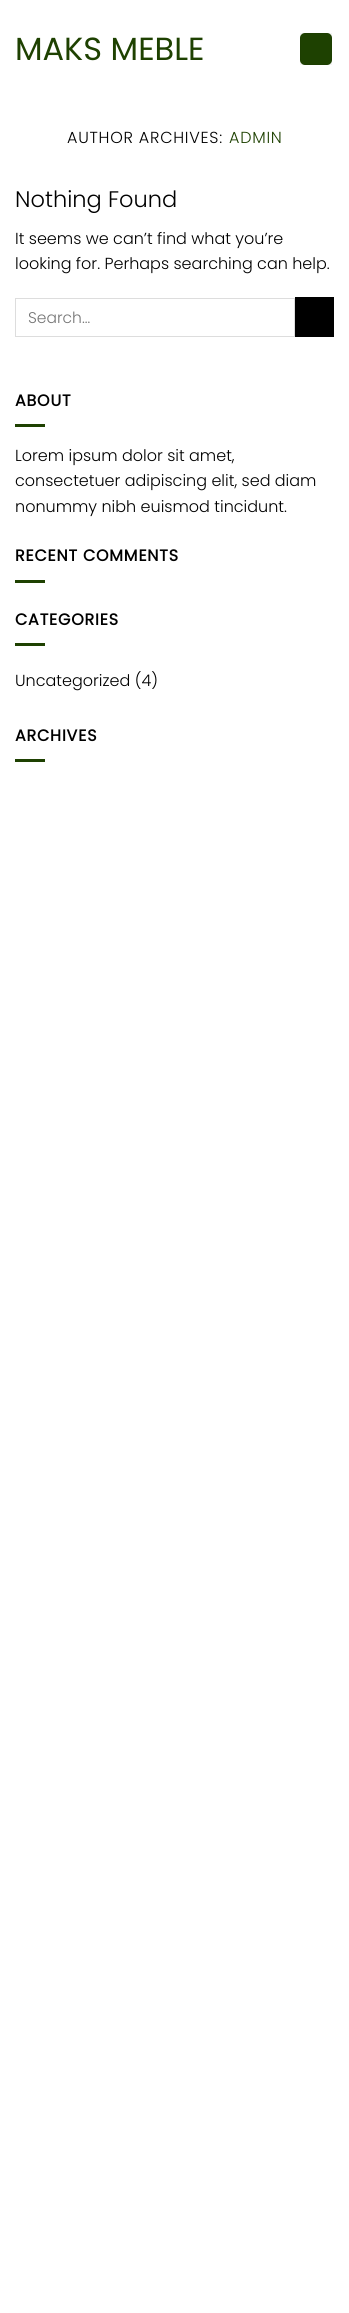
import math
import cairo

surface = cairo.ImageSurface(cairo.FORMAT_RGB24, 349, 2313)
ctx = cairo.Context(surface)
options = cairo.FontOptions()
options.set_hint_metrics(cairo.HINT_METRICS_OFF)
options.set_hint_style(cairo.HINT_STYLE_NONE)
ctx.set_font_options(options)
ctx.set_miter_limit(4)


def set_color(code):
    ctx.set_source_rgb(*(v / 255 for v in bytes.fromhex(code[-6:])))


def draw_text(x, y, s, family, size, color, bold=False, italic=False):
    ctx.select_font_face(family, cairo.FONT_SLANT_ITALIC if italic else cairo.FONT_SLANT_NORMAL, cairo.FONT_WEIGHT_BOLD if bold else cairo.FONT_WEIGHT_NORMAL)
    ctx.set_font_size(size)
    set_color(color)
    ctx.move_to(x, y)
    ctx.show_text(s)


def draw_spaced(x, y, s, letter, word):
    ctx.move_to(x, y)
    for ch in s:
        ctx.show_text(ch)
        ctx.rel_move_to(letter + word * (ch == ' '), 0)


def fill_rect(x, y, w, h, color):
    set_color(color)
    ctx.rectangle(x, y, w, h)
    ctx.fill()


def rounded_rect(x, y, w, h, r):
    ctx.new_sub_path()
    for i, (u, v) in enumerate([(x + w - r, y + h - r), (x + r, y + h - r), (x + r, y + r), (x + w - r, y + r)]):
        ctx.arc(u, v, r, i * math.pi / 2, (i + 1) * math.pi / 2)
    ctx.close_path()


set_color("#ffffff")
ctx.paint()
draw_text(15, 60, "MAKS MEBLE", "Poppins", 32, "#1e4101")
rounded_rect(300, 33, 32, 32, 5)
ctx.fill()
ctx.rectangle(300.5, 33.5, 31, 31)
ctx.set_source_rgba(0, 0, 0, 0.05)
ctx.set_line_width(1)
ctx.stroke()
ctx.select_font_face("Poppins Light")
ctx.set_font_size(16)
set_color("#000000")
draw_spaced(67, 143, "AUTHOR ARCHIVES:", 0.75, 0)
set_color("#1e4101")
draw_spaced(229, 143, "ADMIN", 0.75, 0)
draw_text(15, 207, "Nothing Found", "Poppins Light", 22.5, "#000000")
draw_text(15, 244, "It seems we can’t find what you’re", "Poppins Light", 16, "#000000")
draw_text(15, 269, "looking for. Perhaps searching can help.", "Poppins Light", 16, "#000000")
ctx.rectangle(15.5, 298.5, 279, 38)
set_color("#dddddd")
ctx.stroke()
draw_text(28, 323, "Search…", "Poppins Light", 15.5, "#757575")
fill_rect(295, 297, 39, 40, "#000000")
ctx.select_font_face("Poppins", cairo.FONT_SLANT_NORMAL, cairo.FONT_WEIGHT_BOLD)
ctx.set_font_size(16)
draw_spaced(15, 406, "ABOUT", 0.75, 0)
fill_rect(15, 424, 30, 3, "#1e4101")
draw_text(15, 461, "Lorem ipsum dolor sit amet,", "Poppins Light", 16, "#000000")
draw_text(15, 486, "consectetuer adipiscing elit, sed diam", "Poppins Light", 16, "#000000")
draw_text(15, 512, "nonummy nibh euismod tincidunt.", "Poppins Light", 16, "#000000")
ctx.select_font_face("Poppins", cairo.FONT_SLANT_NORMAL, cairo.FONT_WEIGHT_BOLD)
draw_spaced(15, 561, "RECENT COMMENTS", 0.75, 0)
fill_rect(15, 580, 30, 3, "#1e4101")
set_color("#000000")
draw_spaced(15, 625, "CATEGORIES", 0.75, 0)
fill_rect(15, 643, 30, 3, "#1e4101")
draw_text(15, 686, "Uncategorized (4)", "Poppins Light", 16, "#000000")
ctx.select_font_face("Poppins", cairo.FONT_SLANT_NORMAL, cairo.FONT_WEIGHT_BOLD)
draw_spaced(15, 741, "ARCHIVES", 0.75, 0)
fill_rect(15, 759, 30, 3, "#1e4101")
surface.write_to_png("output.png")
